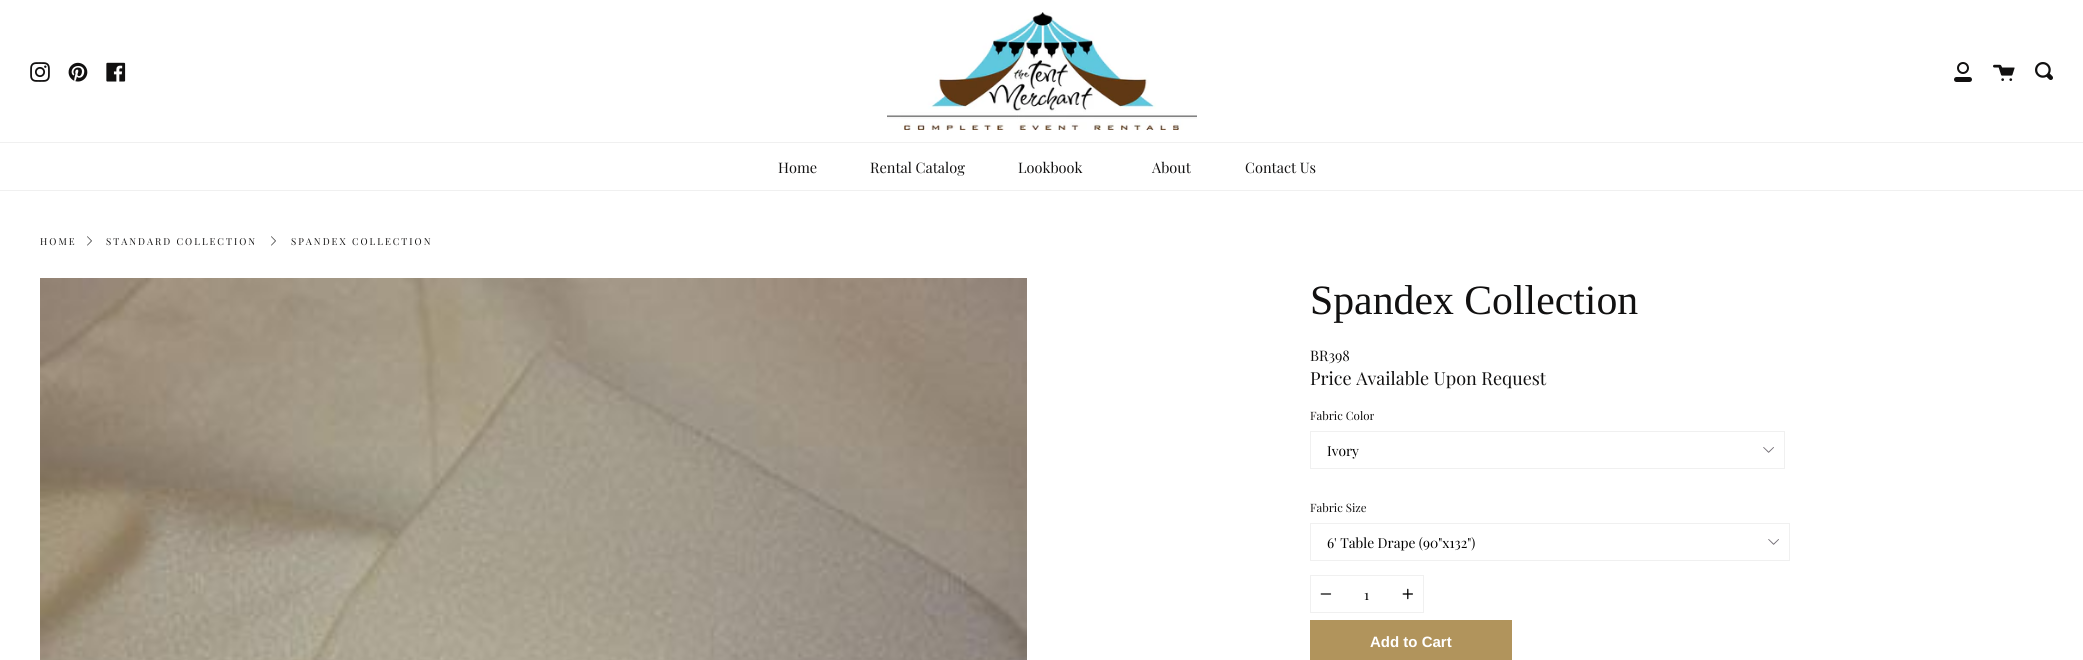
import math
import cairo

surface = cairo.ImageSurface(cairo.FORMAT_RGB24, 2083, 660)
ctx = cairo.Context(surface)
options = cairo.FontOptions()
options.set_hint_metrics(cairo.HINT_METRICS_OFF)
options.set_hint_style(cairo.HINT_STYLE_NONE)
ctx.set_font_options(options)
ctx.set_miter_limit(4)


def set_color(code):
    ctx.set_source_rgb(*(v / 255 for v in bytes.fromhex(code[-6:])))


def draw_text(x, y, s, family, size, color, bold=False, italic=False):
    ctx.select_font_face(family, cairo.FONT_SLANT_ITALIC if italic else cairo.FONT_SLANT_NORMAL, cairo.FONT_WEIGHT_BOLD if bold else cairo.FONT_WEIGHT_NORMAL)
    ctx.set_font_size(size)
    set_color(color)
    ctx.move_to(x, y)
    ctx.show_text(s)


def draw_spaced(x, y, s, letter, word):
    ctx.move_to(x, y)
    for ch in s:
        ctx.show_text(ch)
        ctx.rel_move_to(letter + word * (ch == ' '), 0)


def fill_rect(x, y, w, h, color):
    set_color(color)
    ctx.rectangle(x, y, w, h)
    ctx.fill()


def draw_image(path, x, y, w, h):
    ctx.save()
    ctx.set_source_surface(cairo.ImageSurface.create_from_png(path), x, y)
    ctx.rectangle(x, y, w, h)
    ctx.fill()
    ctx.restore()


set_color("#ffffff")
ctx.paint()
draw_image("assets/img1.png", 30, 62, 20, 20)
draw_image("assets/img2.png", 68, 62, 20, 20)
draw_image("assets/img3.png", 106, 62, 20, 20)
draw_image("assets/img4.png", 887, 12, 310, 118)
draw_image("assets/img5.png", 1954, 62, 18, 20)
draw_image("assets/img6.png", 1993, 64, 22, 17)
draw_image("assets/img7.png", 2035, 62, 18, 18)
fill_rect(0, 142, 2083, 1, "#f0f0f0")
fill_rect(0, 190, 2083, 1, "#f0f0f0")
draw_text(778, 173, "Home", "Playfair Display", 14.5, "#111010")
draw_text(870, 173, "Rental Catalog", "Playfair Display", 14.5, "#111010")
draw_text(1018, 173, "Lookbook", "Playfair Display", 14.5, "#111010")
draw_text(1152, 173, "About", "Playfair Display", 14.5, "#111010")
draw_text(1245, 173, "Contact Us", "Playfair Display", 14.5, "#111010")
ctx.set_font_size(9.6)
draw_spaced(40, 245, "HOME", 2, 0)
draw_image("assets/img8.png", 87, 236, 5, 10)
draw_spaced(106, 245, "STANDARD COLLECTION", 2, 0)
draw_image("assets/img8.png", 271, 236, 5, 10)
draw_spaced(291, 245, "SPANDEX COLLECTION", 2, 0)
draw_image("assets/img9.png", 40, 278, 987, 382)
draw_text(1310, 314, "Spandex Collection", "Liberation Serif", 41.75, "#111010")
draw_text(1310, 361, "BR398", "Playfair Display", 14.5, "#111010")
draw_text(1310, 385, "Price Available Upon Request", "Playfair Display", 18, "#111010")
draw_text(1310, 420, "Fabric Color", "Playfair Display", 11.5, "#111010")
draw_image("assets/img10.png", 1763, 447, 11, 6)
ctx.rectangle(1310.5, 431.5, 474, 37)
set_color("#f0f0f0")
ctx.set_line_width(1)
ctx.stroke()
draw_text(1327, 456, "Ivory", "Playfair Display", 13.75, "#000000")
draw_text(1310, 512, "Fabric Size", "Playfair Display", 11.5, "#111010")
draw_image("assets/img10.png", 1768, 539, 11, 6)
ctx.rectangle(1310.5, 523.5, 479, 37)
set_color("#f0f0f0")
ctx.stroke()
draw_text(1327, 548, "6' Table Drape (90\"x132\")", "Playfair Display", 13.75, "#000000")
ctx.rectangle(1310.5, 575.5, 113, 37)
set_color("#f0f0f0")
ctx.stroke()
draw_image("assets/img11.png", 1320, 593, 12, 2)
draw_text(1364, 600, "1", "Playfair Display", 13.75, "#000000")
draw_image("assets/img12.png", 1402, 588, 11, 12)
fill_rect(1310, 620, 202, 40, "#b1945c")
draw_text(1370, 647, "Add to Cart", "Liberation Sans", 15, "#ffffff", bold=True)
surface.write_to_png("output.png")
